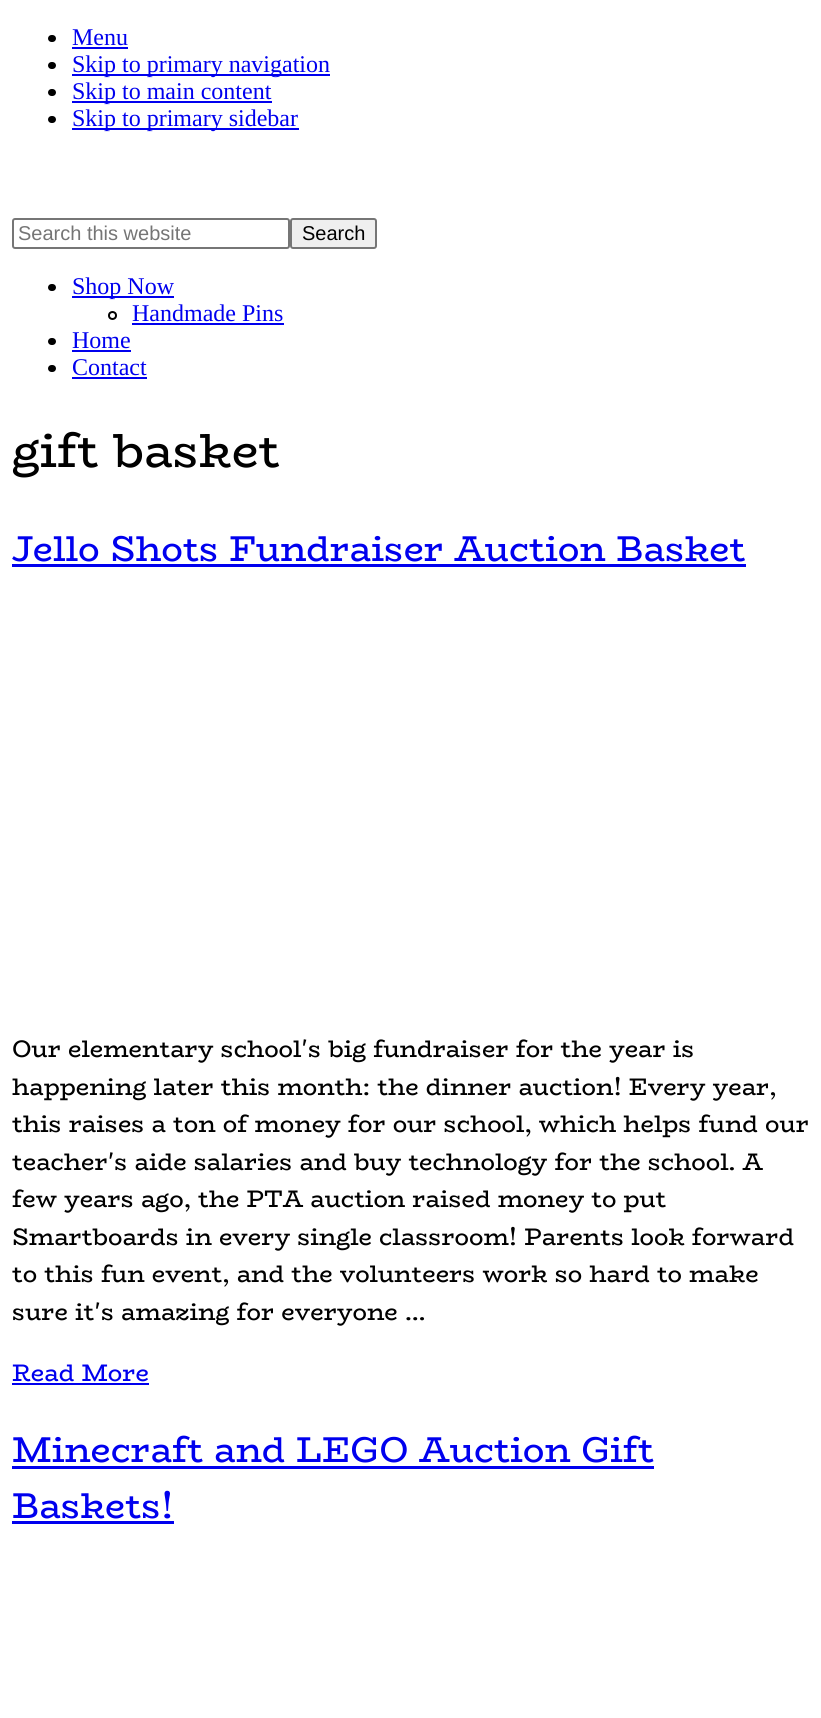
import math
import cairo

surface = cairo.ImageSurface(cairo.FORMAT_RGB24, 821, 1718)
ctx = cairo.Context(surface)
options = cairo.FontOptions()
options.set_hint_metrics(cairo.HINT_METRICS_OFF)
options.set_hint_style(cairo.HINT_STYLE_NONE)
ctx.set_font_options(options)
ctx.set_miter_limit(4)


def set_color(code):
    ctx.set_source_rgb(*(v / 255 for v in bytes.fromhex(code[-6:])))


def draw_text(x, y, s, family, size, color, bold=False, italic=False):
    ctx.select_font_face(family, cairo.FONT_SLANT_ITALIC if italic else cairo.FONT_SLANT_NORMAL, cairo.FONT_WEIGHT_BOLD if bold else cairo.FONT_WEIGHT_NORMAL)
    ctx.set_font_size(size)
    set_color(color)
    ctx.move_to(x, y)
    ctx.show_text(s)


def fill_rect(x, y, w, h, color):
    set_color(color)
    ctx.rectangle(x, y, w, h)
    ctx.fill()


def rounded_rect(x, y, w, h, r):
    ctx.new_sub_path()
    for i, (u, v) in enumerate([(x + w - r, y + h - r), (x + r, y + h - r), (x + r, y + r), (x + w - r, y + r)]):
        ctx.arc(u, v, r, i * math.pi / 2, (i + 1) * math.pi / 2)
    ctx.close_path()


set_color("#ffffff")
ctx.paint()
set_color("#000000")
rounded_rect(48, 35, 8, 7, 3.5)
ctx.fill()
draw_text(72, 45, "Menu", "Liberation Serif", 24, "#0000ee")
fill_rect(72, 47, 56, 2, "#0000ee")
set_color("#000000")
rounded_rect(48, 62, 8, 7, 3.5)
ctx.fill()
fill_rect(72, 74, 258, 2, "#0000ee")
draw_text(72, 72, "Skip to primary navigation", "Liberation Serif", 24, "#0000ee")
set_color("#000000")
rounded_rect(48, 89, 8, 7, 3.5)
ctx.fill()
fill_rect(72, 101, 200, 2, "#0000ee")
draw_text(72, 99, "Skip to main content", "Liberation Serif", 24, "#0000ee")
set_color("#000000")
rounded_rect(48, 116, 8, 7, 3.5)
ctx.fill()
fill_rect(72, 128, 227, 2, "#0000ee")
draw_text(72, 126, "Skip to primary sidebar", "Liberation Serif", 24, "#0000ee")
rounded_rect(13, 219, 276, 29, 2)
set_color("#767676")
ctx.stroke()
draw_text(18, 240, "Search this website", "Liberation Sans", 20, "#757575")
set_color("#efefef")
rounded_rect(291, 219, 85, 29, 2)
ctx.fill_preserve()
set_color("#767676")
ctx.stroke()
draw_text(302, 240, "Search", "Liberation Sans", 20, "#000000")
rounded_rect(48, 284, 8, 7, 3.5)
ctx.fill()
fill_rect(72, 296, 102, 2, "#0000ee")
draw_text(72, 294, "Shop Now", "Liberation Serif", 24, "#0000ee")
ctx.new_path()
ctx.arc(112.5, 315.5, 3.5, 0, 2 * math.pi)
set_color("#000000")
ctx.stroke()
draw_text(132, 321, "Handmade Pins", "Liberation Serif", 24, "#0000ee")
fill_rect(132, 323, 152, 2, "#0000ee")
set_color("#000000")
rounded_rect(48, 338, 8, 7, 3.5)
ctx.fill()
draw_text(72, 348, "Home", "Liberation Serif", 24, "#0000ee")
fill_rect(72, 350, 59, 2, "#0000ee")
set_color("#000000")
rounded_rect(48, 365, 8, 7, 3.5)
ctx.fill()
draw_text(72, 375, "Contact", "Liberation Serif", 24, "#0000ee")
fill_rect(72, 377, 75, 2, "#0000ee")
draw_text(12, 467, "gift basket", "BioRhyme ExtraBold", 48, "#000000")
draw_text(12, 561, "Jello Shots Fundraiser Auction Basket", "BioRhyme ExtraBold", 36, "#0000ee")
fill_rect(12, 564, 734, 3, "#0000ee")
draw_text(12, 1057, "Our elementary school's big fundraiser for the year is", "BioRhyme ExtraBold", 24, "#000000")
draw_text(12, 1095, "happening later this month: the dinner auction! Every year,", "BioRhyme ExtraBold", 24, "#000000")
draw_text(12, 1132, "this raises a ton of money for our school, which helps fund our", "BioRhyme ExtraBold", 24, "#000000")
draw_text(12, 1170, "teacher's aide salaries and buy technology for the school. A", "BioRhyme ExtraBold", 24, "#000000")
draw_text(12, 1207, "few years ago, the PTA auction raised money to put", "BioRhyme ExtraBold", 24, "#000000")
draw_text(12, 1245, "Smartboards in every single classroom! Parents look forward", "BioRhyme ExtraBold", 24, "#000000")
draw_text(12, 1282, "to this fun event, and the volunteers work so hard to make", "BioRhyme ExtraBold", 24, "#000000")
draw_text(12, 1320, "sure it's amazing for everyone …", "BioRhyme ExtraBold", 24, "#000000")
draw_text(12, 1381, "Read More", "BioRhyme ExtraBold", 24, "#0000ee")
fill_rect(12, 1383, 137, 2, "#0000ee")
draw_text(12, 1462, "Minecraft and LEGO Auction Gift", "BioRhyme ExtraBold", 36, "#0000ee")
fill_rect(12, 1466, 642, 3, "#0000ee")
draw_text(12, 1518, "Baskets!", "BioRhyme ExtraBold", 36, "#0000ee")
fill_rect(12, 1521, 162, 3, "#0000ee")
surface.write_to_png("output.png")
